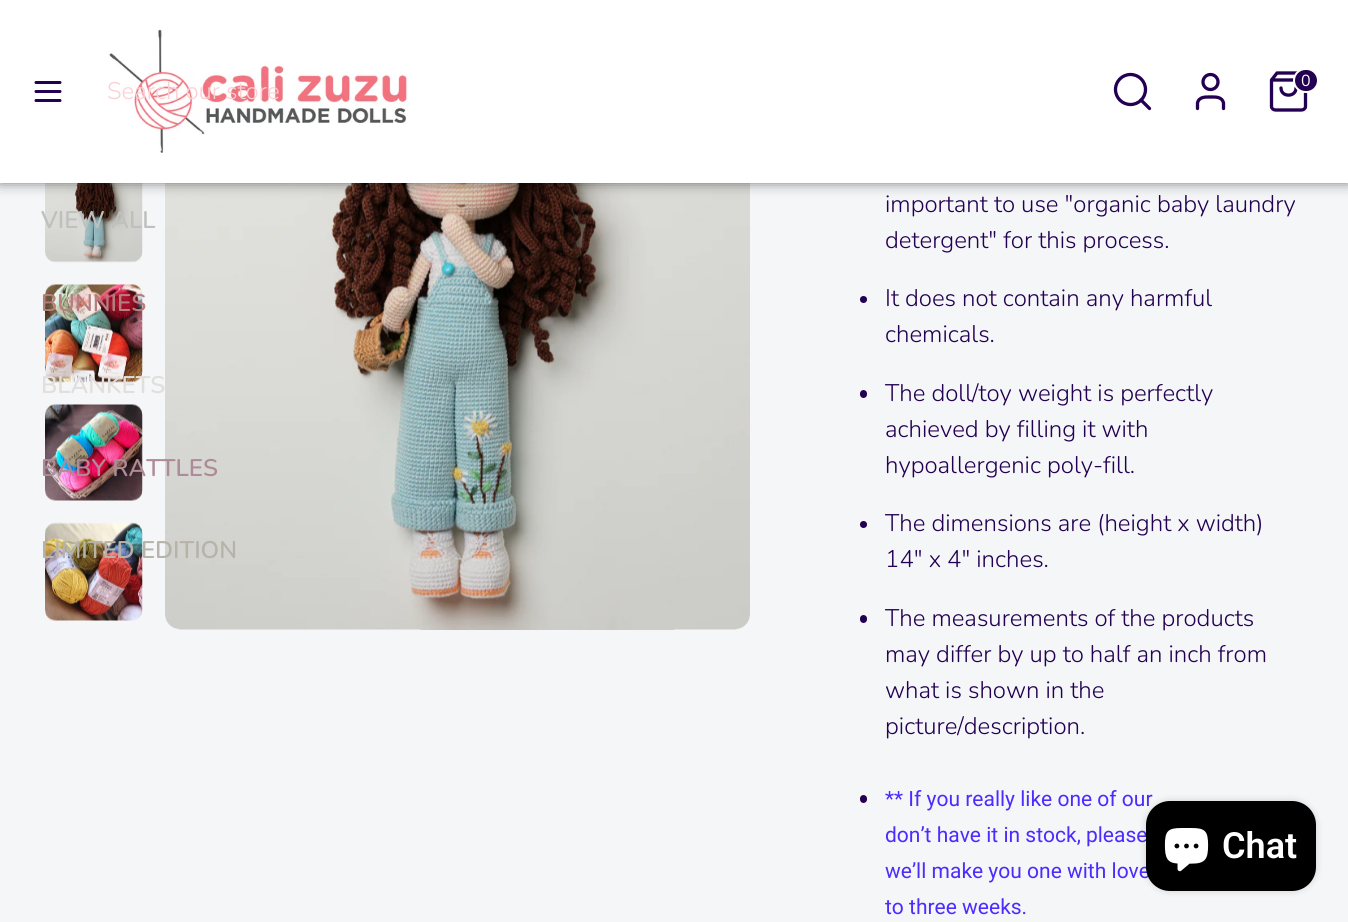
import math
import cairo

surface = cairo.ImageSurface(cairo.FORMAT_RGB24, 1348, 922)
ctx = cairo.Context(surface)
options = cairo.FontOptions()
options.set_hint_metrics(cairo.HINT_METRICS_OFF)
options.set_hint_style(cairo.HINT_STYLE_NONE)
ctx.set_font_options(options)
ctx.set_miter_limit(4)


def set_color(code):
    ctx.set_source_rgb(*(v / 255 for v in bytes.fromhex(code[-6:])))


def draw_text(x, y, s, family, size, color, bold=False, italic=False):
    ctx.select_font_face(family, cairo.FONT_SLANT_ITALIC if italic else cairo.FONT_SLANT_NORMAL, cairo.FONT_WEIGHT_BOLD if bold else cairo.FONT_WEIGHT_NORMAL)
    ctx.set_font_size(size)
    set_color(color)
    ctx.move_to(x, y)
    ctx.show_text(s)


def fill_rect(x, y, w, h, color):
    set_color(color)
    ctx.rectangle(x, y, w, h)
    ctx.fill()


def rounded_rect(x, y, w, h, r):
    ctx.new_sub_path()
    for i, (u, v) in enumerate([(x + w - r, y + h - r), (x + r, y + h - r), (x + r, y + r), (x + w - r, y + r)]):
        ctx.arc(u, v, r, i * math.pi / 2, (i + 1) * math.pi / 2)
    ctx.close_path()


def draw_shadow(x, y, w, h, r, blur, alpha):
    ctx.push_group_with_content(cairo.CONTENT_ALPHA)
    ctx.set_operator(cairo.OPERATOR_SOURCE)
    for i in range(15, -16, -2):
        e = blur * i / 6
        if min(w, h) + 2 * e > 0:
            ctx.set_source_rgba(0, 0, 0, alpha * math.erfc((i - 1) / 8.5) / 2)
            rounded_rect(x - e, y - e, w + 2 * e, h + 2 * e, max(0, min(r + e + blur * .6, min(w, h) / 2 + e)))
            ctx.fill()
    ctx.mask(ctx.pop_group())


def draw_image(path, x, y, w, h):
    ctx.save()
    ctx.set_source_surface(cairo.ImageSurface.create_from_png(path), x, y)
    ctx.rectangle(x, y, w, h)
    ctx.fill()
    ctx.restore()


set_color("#f4f6f8")
ctx.paint()
draw_image("assets/img2.png", 45, 183, 98, 80)
draw_image("assets/img6.png", 165, 183, 585, 447)
set_color("#000000")
draw_shadow(0, -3, 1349, 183, 0, 7.5, 0.75)
fill_rect(0, 0, 1348, 183, "#ffffff")
draw_image("assets/img1.png", 108, 29, 303, 124)
ctx.new_path()
ctx.move_to(36, 91.5)
ctx.line_to(60, 91.5)
ctx.move_to(36, 82.5)
ctx.line_to(60, 82.5)
ctx.move_to(36, 100.5)
ctx.line_to(60, 100.5)
set_color("#230051")
ctx.set_line_width(3)
ctx.set_line_cap(cairo.LINE_CAP_ROUND)
ctx.set_line_join(cairo.LINE_JOIN_ROUND)
ctx.stroke()
draw_text(107, 99, "Search our store", "Nunito Light", 24, "#f9d0d4")
ctx.new_path()
ctx.arc(1130.5, 89.5, 15, 0, 2 * math.pi)
set_color("#230051")
ctx.set_line_width(3.3)
ctx.set_line_cap(cairo.LINE_CAP_BUTT)
ctx.set_line_join(cairo.LINE_JOIN_MITER)
ctx.stroke()
ctx.new_path()
ctx.move_to(1149.5, 108.5)
ctx.line_to(1141, 100)
ctx.set_line_cap(cairo.LINE_CAP_ROUND)
ctx.set_line_join(cairo.LINE_JOIN_ROUND)
ctx.stroke()
ctx.new_path()
ctx.move_to(1223.5, 108.5)
ctx.line_to(1223.5, 103)
ctx.curve_to(1222, 96.5, 1215.5, 97, 1210.5, 97)
ctx.curve_to(1205.5, 97, 1199, 96.5, 1197.5, 103)
ctx.line_to(1197.5, 108.5)
ctx.stroke()
ctx.arc(1210.5, 82, 7.5, 0, 2 * math.pi)
ctx.set_line_cap(cairo.LINE_CAP_BUTT)
ctx.set_line_join(cairo.LINE_JOIN_MITER)
ctx.stroke()
ctx.new_path()
ctx.move_to(1277, 73)
ctx.line_to(1271.5, 80)
ctx.line_to(1271.5, 106.5)
ctx.curve_to(1271.5, 108.5, 1273.5, 110, 1275.5, 110)
ctx.line_to(1301.5, 110)
ctx.curve_to(1303.5, 110, 1305.5, 108.5, 1305.5, 106.5)
ctx.line_to(1305.5, 80)
ctx.line_to(1300, 73)
ctx.close_path()
ctx.move_to(1271.5, 80)
ctx.line_to(1305.5, 80)
ctx.move_to(1296, 88)
ctx.curve_to(1296, 97.5, 1281, 97.5, 1281, 88)
ctx.set_line_cap(cairo.LINE_CAP_ROUND)
ctx.set_line_join(cairo.LINE_JOIN_ROUND)
ctx.stroke()
rounded_rect(1294, 69, 24, 23, 11.5)
ctx.fill_preserve()
set_color("#ffffff")
ctx.set_line_width(2)
ctx.set_line_cap(cairo.LINE_CAP_BUTT)
ctx.set_line_join(cairo.LINE_JOIN_MITER)
ctx.stroke()
draw_text(1301, 86, "0", "Nunito", 16, "#ffffff")
draw_text(41, 228, "VIEW ALL", "Nunito SemiBold", 24, "#bdc0bd")
draw_image("assets/img3.png", 45, 284, 98, 99)
draw_text(41, 311, "BUNNIES", "Nunito SemiBold", 24, "#b57e7f")
draw_text(41, 393, "BLANKETS", "Nunito SemiBold", 24, "#e2dedb")
draw_image("assets/img4.png", 45, 404, 98, 97)
draw_text(41, 476, "BABY RATTLES", "Nunito SemiBold", 24, "#ad8b99")
draw_image("assets/img5.png", 45, 522, 98, 99)
draw_text(41, 558, "LIMITED EDITION", "Nunito SemiBold", 24, "#b8b3a9")
draw_text(885, 212, "important to use \"organic baby laundry", "Nunito Light", 24, "#230051")
draw_text(885, 248, "detergent\" for this process.", "Nunito Light", 24, "#230051")
ctx.new_path()
ctx.arc(863.5, 299.5, 3.5, 0, 2 * math.pi)
ctx.fill()
draw_text(885, 306, "It does not contain any harmful", "Nunito Light", 24, "#230051")
draw_text(885, 342, "chemicals.", "Nunito Light", 24, "#230051")
rounded_rect(860, 390, 7, 8, 3.5)
ctx.fill()
draw_text(885, 401, "The doll/toy weight is perfectly", "Nunito Light", 24, "#230051")
draw_text(885, 437, "achieved by filling it with", "Nunito Light", 24, "#230051")
draw_text(885, 473, "hypoallergenic poly-fill.", "Nunito Light", 24, "#230051")
ctx.new_path()
ctx.arc(863.5, 524.5, 3.5, 0, 2 * math.pi)
ctx.fill()
draw_text(885, 531, "The dimensions are (height x width)", "Nunito Light", 24, "#230051")
draw_text(885, 567, "14\" x 4\" inches.", "Nunito Light", 24, "#230051")
rounded_rect(860, 615, 7, 8, 3.5)
ctx.fill()
draw_text(885, 626, "The measurements of the products", "Nunito Light", 24, "#230051")
draw_text(885, 662, "may differ by up to half an inch from", "Nunito Light", 24, "#230051")
draw_text(885, 698, "what is shown in the", "Nunito Light", 24, "#230051")
draw_text(885, 734, "picture/description.", "Nunito Light", 24, "#230051")
rounded_rect(860, 795, 7, 8, 3.5)
ctx.fill()
draw_text(885, 806, "** If you really like one of our", "Roboto", 21, "#4e2aff")
draw_text(885, 842, "don’t have it in stock, please", "Roboto", 21, "#4e2aff")
draw_text(885, 878, "we’ll make you one with love", "Roboto", 21, "#4e2aff")
draw_text(885, 914, "to three weeks.", "Roboto", 21, "#4e2aff")
set_color("#000000")
draw_shadow(1146, 801, 170, 90, 24, 4, 0.15)
set_color("#000000")
rounded_rect(1146, 801, 170, 90, 24)
ctx.fill()
draw_image("assets/img7.png", 1164, 828, 45, 44)
draw_text(1222, 858, "Chat", "Roboto SemiBold", 36, "#ffffff")
surface.write_to_png("output.png")
